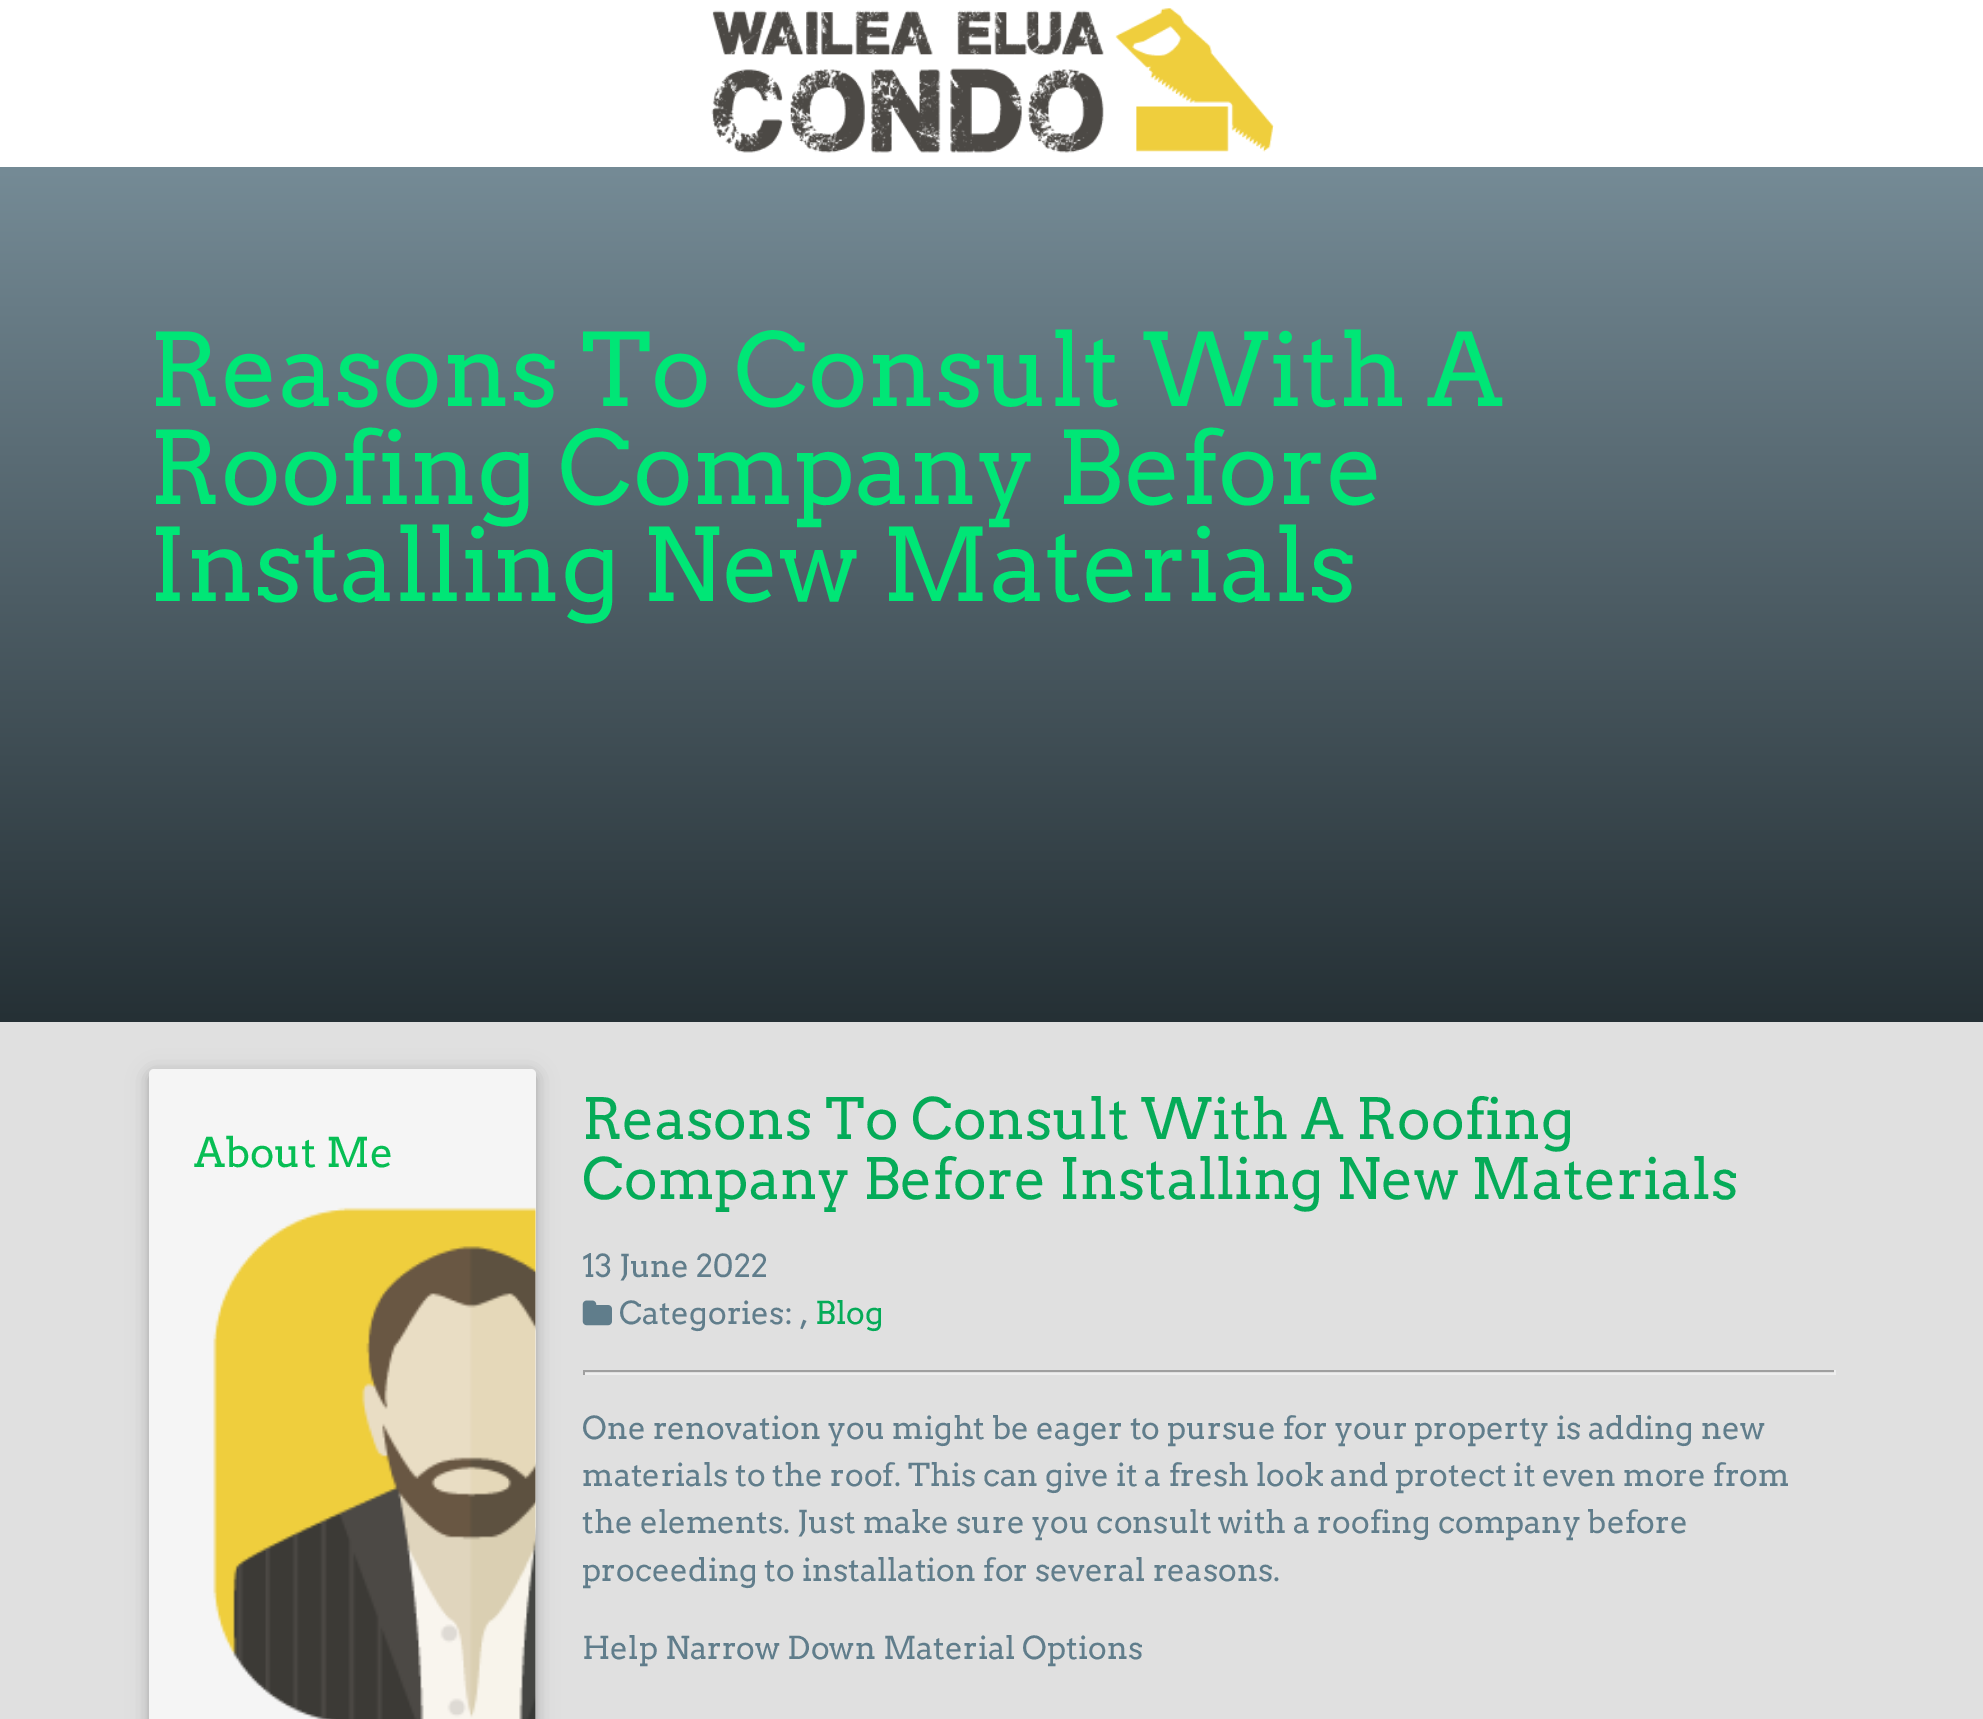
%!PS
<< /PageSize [1983 1719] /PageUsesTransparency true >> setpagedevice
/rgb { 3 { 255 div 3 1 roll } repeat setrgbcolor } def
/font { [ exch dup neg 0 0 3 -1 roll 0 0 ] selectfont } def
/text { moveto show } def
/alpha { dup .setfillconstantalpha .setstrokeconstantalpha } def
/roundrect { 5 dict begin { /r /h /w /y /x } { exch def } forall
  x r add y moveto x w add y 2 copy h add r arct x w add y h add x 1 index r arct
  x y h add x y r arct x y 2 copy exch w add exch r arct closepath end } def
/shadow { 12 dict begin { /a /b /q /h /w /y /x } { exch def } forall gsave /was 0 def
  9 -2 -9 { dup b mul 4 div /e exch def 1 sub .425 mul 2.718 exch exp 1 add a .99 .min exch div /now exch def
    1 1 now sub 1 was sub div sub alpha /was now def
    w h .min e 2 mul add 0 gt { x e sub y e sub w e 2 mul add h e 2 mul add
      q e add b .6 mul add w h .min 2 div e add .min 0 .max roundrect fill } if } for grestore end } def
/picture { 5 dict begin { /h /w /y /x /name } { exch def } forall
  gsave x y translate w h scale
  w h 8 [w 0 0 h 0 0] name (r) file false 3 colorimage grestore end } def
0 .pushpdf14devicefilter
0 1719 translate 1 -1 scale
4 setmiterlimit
255 255 255 rgb
0 0 1983 1719 rectfill
(img_01.rgb) 711 8 563 145 picture
gsave 0 167 moveto 1983 0 rlineto 0 855 rlineto -1983 0 rlineto closepath clip newpath
<< /ShadingType 2 /ColorSpace /DeviceRGB /Coords [992 166 992 1022] /Extend [true true] /Function << /FunctionType 2 /Domain [0 1] /C0 [0.459 0.545 0.588] /C1 [0.145 0.188 0.208] /N 1 >> >> shfill grestore
224 224 224 rgb
0 1022 1983 697 rectfill
0 0 0 rgb
149 1073 387 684 5 11 0.12 shadow
149 1073 387 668 5 5.5 0.16 shadow
245 245 245 rgb
149 1069 387 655 5 roundrect fill
(img_02.rgb) 213 1207 323 512 picture
(img_03.rgb) 582 1300 30 26 picture
159 159 159 rgb
583 1370 1253 2 rectfill
238 238 238 rgb
1834 1370 2 5 rectfill
583 1373 1253 2 rectfill
159 159 159 rgb
583 1370 2 5 rectfill
/Arvo-Regular 100.75 font
0 230 118 rgb
(Reasons To Consult With A) 149 406 text
(Roofing Company Before) 149 504 text
(Installing New Materials) 149 601 text
/Arvo-Regular 41 font
7 190 84 rgb
(About Me) 194 1167 text
/Arvo-Regular 56.7 font
5 171 88 rgb
(Reasons To Consult With A Roofing) 582 1139 text
(Company Before Installing New Materials) 582 1199 text
/Arvo-Regular 31.5 font
96 125 139 rgb
(13 June 2022) 582 1277 text
(Categories: ,) 619 1324 text
5 171 88 rgb
(Blog) 815 1324 text
96 125 139 rgb
(One renovation you might be eager to pursue for your property is adding new) 582 1439 text
(materials to the roof. This can give it a fresh look and protect it even more from) 582 1486 text
(the elements. Just make sure you consult with a roofing company before) 582 1533 text
(proceeding to installation for several reasons.) 582 1581 text
(Help Narrow Down Material Options) 582 1659 text
.poppdf14devicefilter showpage
